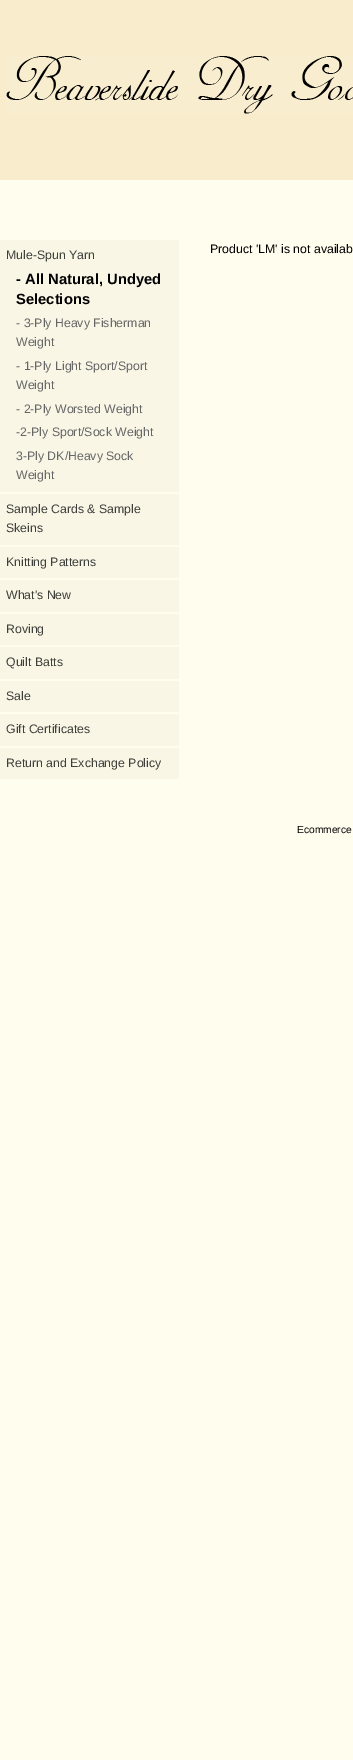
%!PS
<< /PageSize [353 1760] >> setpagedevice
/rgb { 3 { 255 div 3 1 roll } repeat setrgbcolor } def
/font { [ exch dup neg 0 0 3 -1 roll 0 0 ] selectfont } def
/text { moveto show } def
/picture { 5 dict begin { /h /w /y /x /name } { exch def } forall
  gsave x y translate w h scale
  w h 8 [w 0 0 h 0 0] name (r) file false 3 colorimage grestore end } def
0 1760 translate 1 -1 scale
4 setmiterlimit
255 253 238 rgb
0 0 353 1760 rectfill
248 236 205 rgb
0 0 353 180 rectfill
(img_01.rgb) 6 56 347 58 picture
249 246 230 rgb
0 240 179 252 rectfill
0 494 179 51 rectfill
0 547 179 31 rectfill
0 580 179 32 rectfill
0 614 179 31 rectfill
0 647 179 32 rectfill
0 681 179 31 rectfill
0 714 179 32 rectfill
0 748 179 31 rectfill
/LiberationSans-Regular 12.3 font
0 0 0 rgb
(Product 'LM' is not availab) 210 253 text
62 62 58 rgb
(Mule-Spun Yarn) 6 259 text
/LiberationSans-Bold 14.75 font
0 0 0 rgb
(- All Natural, Undyed) 16 284 text
(Selections) 16 304 text
/LiberationSans-Regular 12.3 font
102 102 102 rgb
(- 3-Ply Heavy Fisherman) 16 327 text
(Weight) 16 346 text
(- 1-Ply Light Sport/Sport) 16 370 text
(Weight) 16 389 text
(- 2-Ply Worsted Weight) 16 413 text
(-2-Ply Sport/Sock Weight) 16 436 text
(3-Ply DK/Heavy Sock) 16 460 text
(Weight) 16 479 text
62 62 58 rgb
(Sample Cards & Sample) 6 513 text
(Skeins) 6 532 text
(Knitting Patterns) 6 566 text
(What's New) 6 599 text
(Roving) 6 633 text
(Quilt Batts) 6 666 text
(Sale) 6 700 text
(Gift Certificates) 6 733 text
(Return and Exchange Policy) 6 767 text
/LiberationSans-Regular 10.25 font
0 0 0 rgb
(Ecommerce) 297 833 text
showpage
